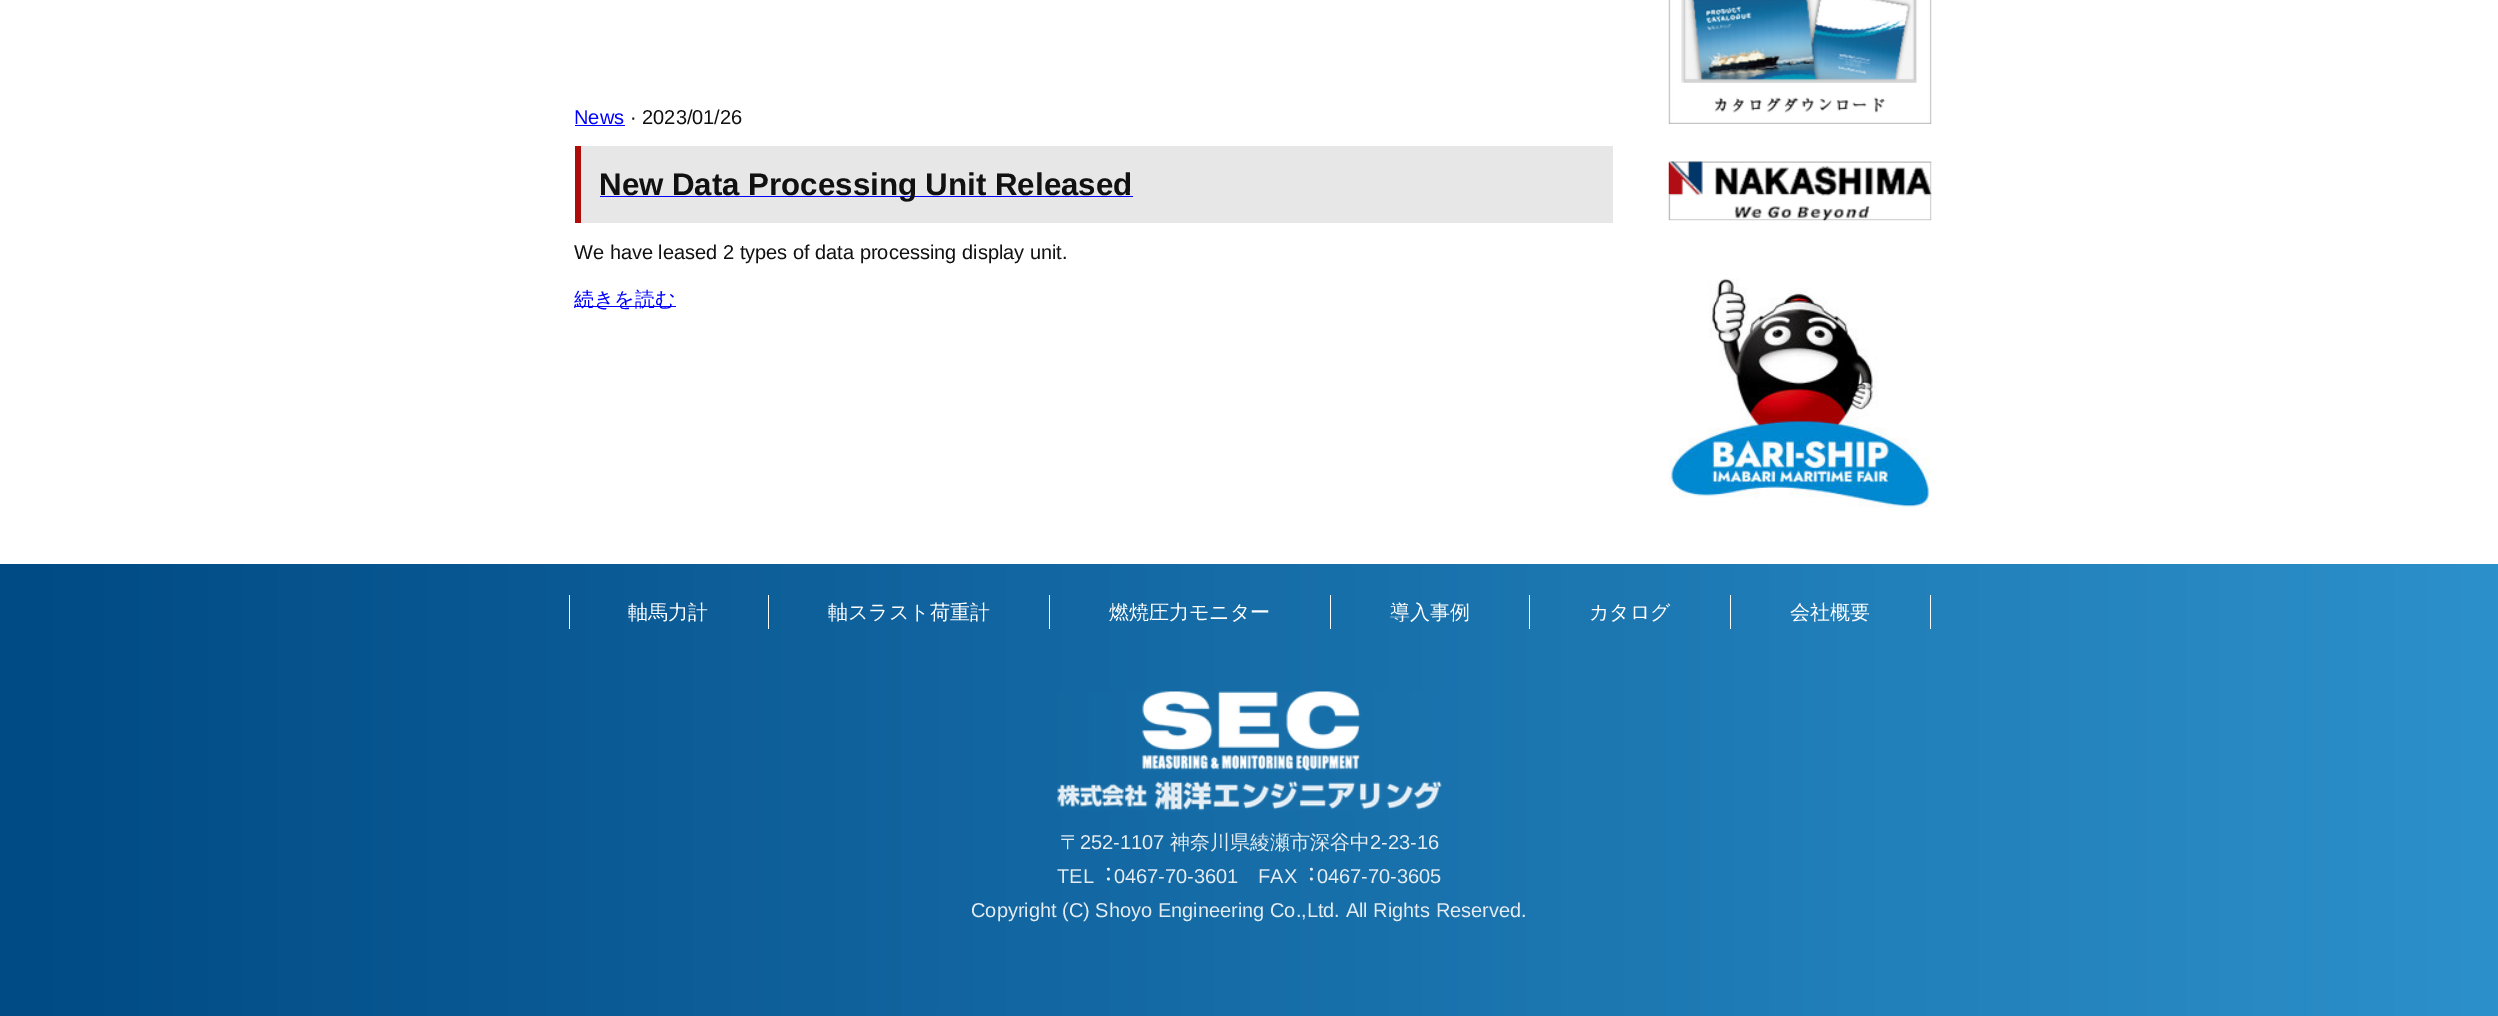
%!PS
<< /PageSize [2498 1016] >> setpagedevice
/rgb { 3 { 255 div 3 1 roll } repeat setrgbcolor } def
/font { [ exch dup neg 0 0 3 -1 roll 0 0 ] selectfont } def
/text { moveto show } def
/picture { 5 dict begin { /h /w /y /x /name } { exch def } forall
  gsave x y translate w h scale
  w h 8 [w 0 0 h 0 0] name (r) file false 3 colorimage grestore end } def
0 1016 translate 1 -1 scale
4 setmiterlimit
255 255 255 rgb
0 0 2498 1016 rectfill
0 0 255 rgb
575 125 50 1 rectfill
231 231 231 rgb
581 146 1032 77 rectfill
174 12 9 rgb
575 146 6 77 rectfill
0 0 255 rgb
600 196 533 1 rectfill
575 306 101 1 rectfill
(img_01.rgb) 1668 0 264 124 picture
(img_02.rgb) 1668 161 264 60 picture
(img_03.rgb) 1668 278 263 230 picture
gsave 0 564 moveto 2498 0 rlineto 0 445 rlineto -2498 0 rlineto closepath clip newpath
<< /ShadingType 2 /ColorSpace /DeviceRGB /Coords [0 786 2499 786] /Extend [true true] /Function << /FunctionType 2 /Domain [0 1] /C0 [0 0.29 0.522] /C1 [0.173 0.565 0.792] /N 1 >> >> shfill grestore
255 255 255 rgb
569 595 1 34 rectfill
768 595 1 34 rectfill
1049 595 1 34 rectfill
1330 595 1 34 rectfill
1529 595 1 34 rectfill
1730 595 1 34 rectfill
1930 595 1 34 rectfill
(img_04.rgb) 1057 691 385 120 picture
gsave 0 1009 moveto 2498 0 rlineto 0 7 rlineto -2498 0 rlineto closepath clip newpath
<< /ShadingType 2 /ColorSpace /DeviceRGB /Coords [0 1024 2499 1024] /Extend [true true] /Function << /FunctionType 2 /Domain [0 1] /C0 [0 0.29 0.522] /C1 [0.173 0.565 0.792] /N 1 >> >> shfill grestore
/LiberationSans-Regular 20 font
0 0 255 rgb
(News) 574 124 text
17 17 17 rgb
(· 2023/01/26) 630 124 text
/LiberationSans-Bold 31.25 font
(New Data Processing Unit Released) 599 195 text
/LiberationSans-Regular 20 font
(We have leased 2 types of data processing display unit.) 574 259 text
/WenQuanYiZenHei-Medium 20 font
0 0 255 rgb
(続きを読む) 574 306 text
255 255 255 rgb
(軸馬力計) 628 619 text
(軸スラスト荷重計) 828 619 text
(燃焼圧力モニター) 1109 619 text
(導入事例) 1390 619 text
(カタログ) 1589 619 text
(会社概要) 1790 619 text
229 237 243 rgb
(〒) 1060 849 text
/LiberationSans-Regular 20 font
(252-1107) 1080 849 text
/WenQuanYiZenHei-Medium 20 font
(神奈川県綾瀬市深谷中) 1170 849 text
/LiberationSans-Regular 20 font
(2-23-16) 1370 849 text
(TEL) 1057 883 text
/ChironHeiHK-Regular 20 font
(︓) 1094 883 text
/LiberationSans-Regular 20 font
(0467-70-3601) 1114 883 text
(FAX) 1258 883 text
/ChironHeiHK-Regular 20 font
(︓) 1297 883 text
/LiberationSans-Regular 20 font
(0467-70-3605) 1317 883 text
(Copyright \(C\) Shoyo Engineering Co.,Ltd. All Rights Reserved.) 971 917 text
showpage
